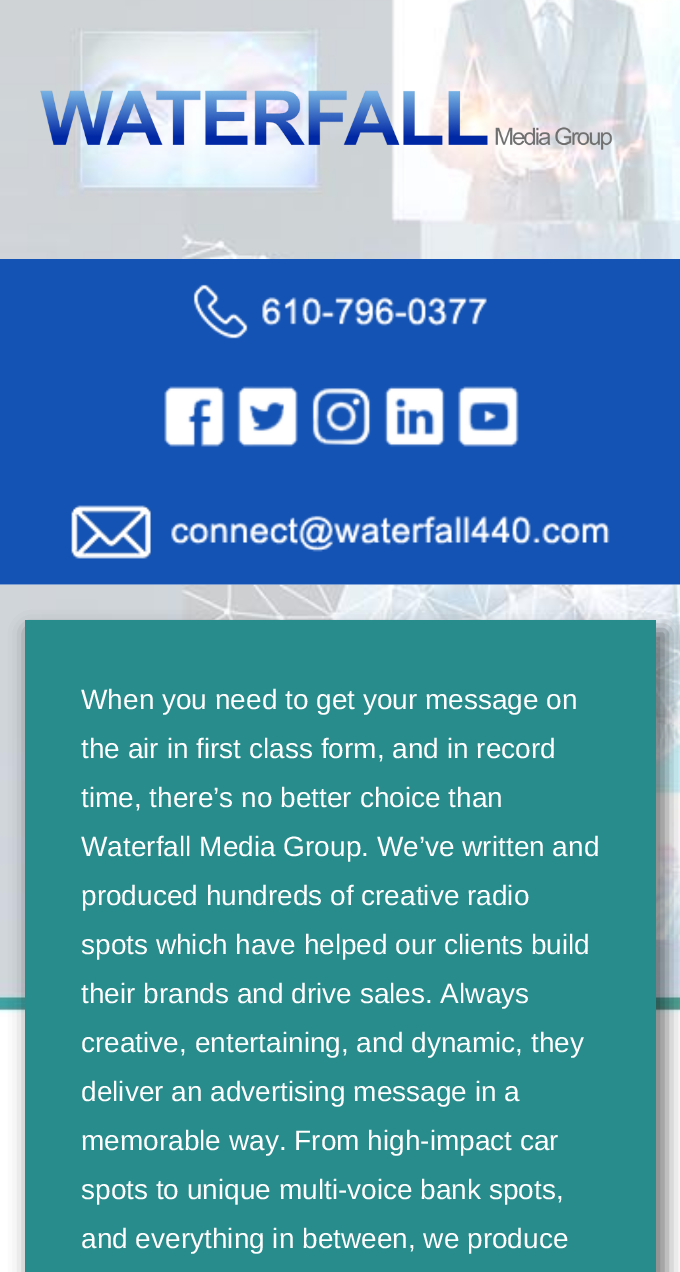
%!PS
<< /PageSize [680 1272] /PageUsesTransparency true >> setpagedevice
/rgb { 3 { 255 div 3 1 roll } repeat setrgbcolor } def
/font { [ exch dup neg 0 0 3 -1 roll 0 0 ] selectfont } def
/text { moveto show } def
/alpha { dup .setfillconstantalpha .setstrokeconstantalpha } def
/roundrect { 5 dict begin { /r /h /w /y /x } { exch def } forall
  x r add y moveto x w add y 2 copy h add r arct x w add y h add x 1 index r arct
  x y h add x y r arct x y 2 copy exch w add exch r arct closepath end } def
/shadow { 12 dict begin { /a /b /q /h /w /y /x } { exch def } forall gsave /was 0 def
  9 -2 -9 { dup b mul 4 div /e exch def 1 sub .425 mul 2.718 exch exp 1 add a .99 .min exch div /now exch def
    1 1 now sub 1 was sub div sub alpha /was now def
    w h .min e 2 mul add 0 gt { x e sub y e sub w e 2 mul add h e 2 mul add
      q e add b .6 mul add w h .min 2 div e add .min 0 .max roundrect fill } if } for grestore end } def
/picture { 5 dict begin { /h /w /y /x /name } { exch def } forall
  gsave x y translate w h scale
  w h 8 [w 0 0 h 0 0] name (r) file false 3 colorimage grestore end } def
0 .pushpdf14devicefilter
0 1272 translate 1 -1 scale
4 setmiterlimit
255 255 255 rgb
0 0 680 1272 rectfill
(img_01.rgb) 0 0 680 259 picture
(img_02.rgb) 40 90 573 60 picture
20 83 180 rgb
0 259 680 326 rectfill
(img_03.rgb) 193 284 294 55 picture
(img_04.rgb) 164 386 355 61 picture
(img_05.rgb) 71 505 539 54 picture
(img_06.rgb) 0 584 680 433 picture
0 0 0 rgb
28 630 639 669 0 9 0.5 shadow
40 140 140 rgb
25 620 631 652 rectfill
/LiberationSans-Regular 28 font
255 255 255 rgb
(When you need to get your message on) 81 709 text
(the air in first class form, and in record) 81 758 text
(time, there’s no better choice than) 81 807 text
(Waterfall Media Group. We’ve written and) 81 856 text
(produced hundreds of creative radio) 81 905 text
(spots which have helped our clients build) 81 954 text
(their brands and drive sales. Always) 81 1003 text
(creative, entertaining, and dynamic, they) 81 1052 text
(deliver an advertising message in a) 81 1101 text
(memorable way. From high-impact car) 81 1150 text
(spots to unique multi-voice bank spots,) 81 1199 text
(and everything in between, we produce) 81 1248 text
.poppdf14devicefilter showpage
